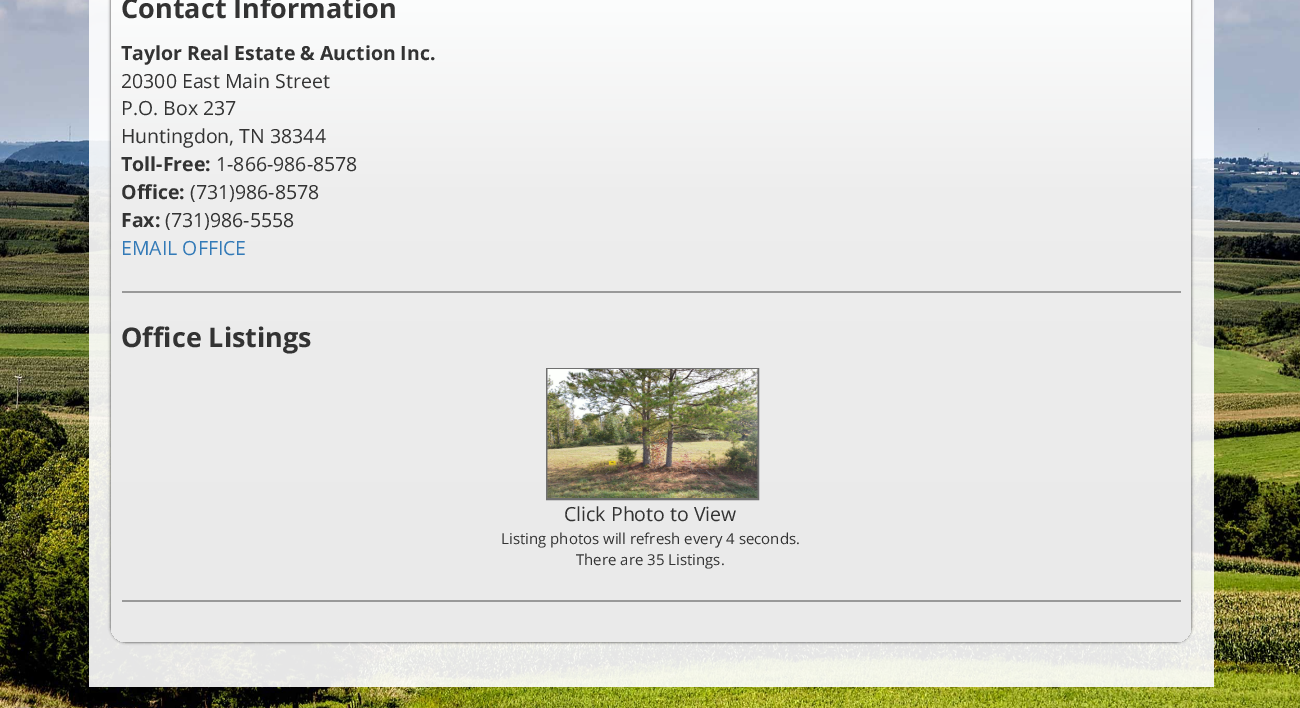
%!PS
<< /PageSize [1300 708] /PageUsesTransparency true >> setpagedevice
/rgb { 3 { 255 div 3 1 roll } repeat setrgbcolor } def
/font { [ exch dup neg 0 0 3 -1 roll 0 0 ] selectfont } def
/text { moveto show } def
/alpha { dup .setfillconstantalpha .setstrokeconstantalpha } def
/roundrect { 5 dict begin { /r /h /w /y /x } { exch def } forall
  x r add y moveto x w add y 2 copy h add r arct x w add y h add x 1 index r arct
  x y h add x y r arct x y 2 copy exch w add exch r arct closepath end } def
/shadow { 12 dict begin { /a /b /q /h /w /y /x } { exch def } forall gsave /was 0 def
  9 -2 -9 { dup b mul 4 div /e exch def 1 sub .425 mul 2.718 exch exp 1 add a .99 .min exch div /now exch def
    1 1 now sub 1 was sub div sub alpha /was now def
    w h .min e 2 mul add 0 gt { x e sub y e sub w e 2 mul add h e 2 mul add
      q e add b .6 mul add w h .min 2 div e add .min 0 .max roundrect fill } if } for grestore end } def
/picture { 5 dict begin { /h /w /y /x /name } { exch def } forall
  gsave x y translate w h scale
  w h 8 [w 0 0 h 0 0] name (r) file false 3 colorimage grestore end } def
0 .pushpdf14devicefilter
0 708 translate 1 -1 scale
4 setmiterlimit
255 255 255 rgb
0 0 1300 708 rectfill
(img_01.rgb) 0 0 1300 708 picture
0.9 alpha
89 0 1125 687 rectfill
1 alpha
0 0 0 rgb
111 -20 1080 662 15 1.5 0.75 shadow
gsave 111 -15 1080 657 15 roundrect clip newpath
<< /ShadingType 2 /ColorSpace /DeviceRGB /Coords [651 -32 651 642] /Extend [true true] /Function << /FunctionType 3 /Domain [0 1] /Functions [<< /FunctionType 2 /Domain [0 1] /C0 [0.996 1 1] /C1 [0.929 0.929 0.929] /N 1 >> << /FunctionType 2 /Domain [0 1] /C0 [0.929 0.929 0.929] /C1 [0.918 0.918 0.918] /N 1 >>] /Bounds [0.35] /Encode [0 1 0 1] >> >> shfill grestore
153 153 153 rgb
122 291 1059 2 rectfill
111 111 111 rgb
2 setlinewidth
547 369 211 130 rectstroke
(img_02.rgb) 547 369 211 129 picture
153 153 153 rgb
122 600 1059 2 rectfill
/OpenSans-Bold 27 font
51 51 51 rgb
(Contact Information) 121 18 text
/OpenSans-Bold 19.5 font
(Taylor Real Estate & Auction Inc.) 121 60 text
/OpenSans-Regular 19.5 font
(20300 East Main Street) 121 88 text
(P.O. Box 237) 121 115 text
(Huntingdon, TN 38344) 121 143 text
/OpenSans-Bold 19.5 font
(Toll-Free:) 121 171 text
/OpenSans-Regular 19.5 font
(1-866-986-8578) 216 171 text
/OpenSans-Bold 19.5 font
(Office:) 121 199 text
/OpenSans-Regular 19.5 font
(\(731\)986-8578) 190 199 text
/OpenSans-Bold 19.5 font
(Fax:) 121 227 text
/OpenSans-Regular 19.5 font
(\(731\)986-5558) 165 227 text
51 122 183 rgb
(EMAIL OFFICE) 121 255 text
/OpenSans-Bold 27 font
51 51 51 rgb
(Office Listings) 121 347 text
/OpenSans-Regular 19.5 font
(Click Photo to View) 564 521 text
/OpenSans-Regular 15 font
(Listing photos will refresh every 4 seconds.) 501 544 text
(There are 35 Listings.) 576 565 text
.poppdf14devicefilter showpage
